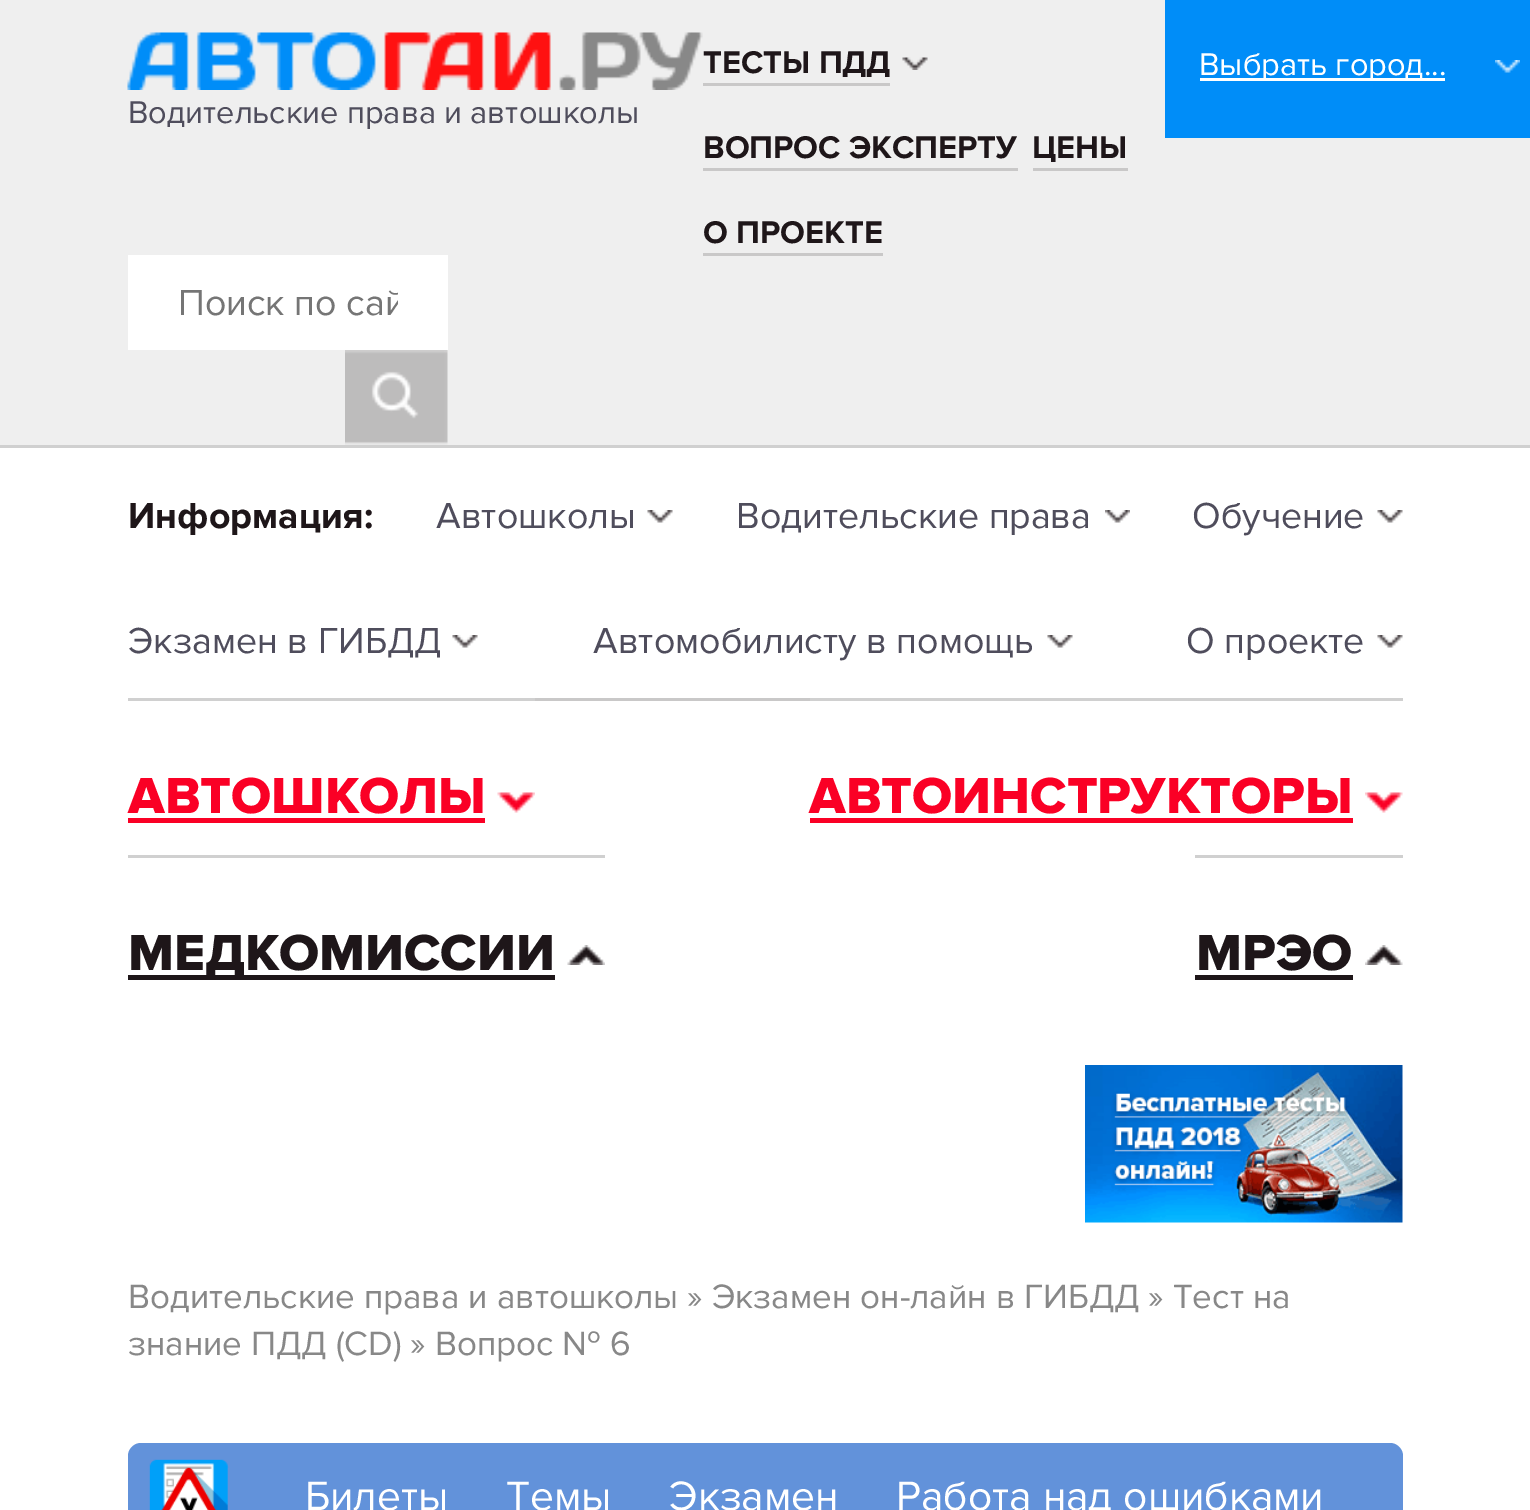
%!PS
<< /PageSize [1530 1510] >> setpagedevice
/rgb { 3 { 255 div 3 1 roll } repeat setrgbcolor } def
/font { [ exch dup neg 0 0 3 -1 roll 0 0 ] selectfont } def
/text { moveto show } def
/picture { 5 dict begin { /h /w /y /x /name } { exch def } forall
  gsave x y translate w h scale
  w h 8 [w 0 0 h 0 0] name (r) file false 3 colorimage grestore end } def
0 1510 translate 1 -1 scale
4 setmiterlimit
255 255 255 rgb
0 0 1530 1510 rectfill
239 239 239 rgb
0 0 1530 445 rectfill
208 208 208 rgb
0 445 1530 3 rectfill
(img_01.rgb) 902 57 26 13 picture
201 200 200 rgb
703 83 187 3 rectfill
703 168 315 3 rectfill
1033 168 95 3 rectfill
703 253 180 3 rectfill
0 141 248 rgb
1165 0 365 138 rectfill
(img_02.rgb) 1495 60 25 13 picture
255 255 255 rgb
1200 78 245 3 rectfill
(img_03.rgb) 127 32 576 58 picture
128 255 320 95 rectfill
(img_04.rgb) 345 350 103 95 picture
201 200 200 rgb
535 698 275 3 rectfill
(img_05.rgb) 647 510 26 13 picture
(img_06.rgb) 1105 510 25 13 picture
(img_05.rgb) 1377 510 26 13 picture
(img_05.rgb) 452 635 26 13 picture
(img_07.rgb) 1047 635 26 13 picture
(img_05.rgb) 1377 635 26 13 picture
208 208 208 rgb
128 698 407 3 rectfill
(img_08.rgb) 497 792 38 21 picture
250 0 37 rgb
128 818 357 5 rectfill
208 208 208 rgb
810 698 593 3 rectfill
(img_09.rgb) 1365 792 38 21 picture
250 0 37 rgb
810 818 543 5 rectfill
208 208 208 rgb
128 855 477 3 rectfill
(img_10.rgb) 567 945 38 20 picture
30 22 25 rgb
128 975 427 5 rectfill
208 208 208 rgb
1195 855 208 3 rectfill
(img_11.rgb) 1365 945 38 20 picture
30 22 25 rgb
1195 975 158 5 rectfill
(img_12.rgb) 1085 1065 318 158 picture
98 146 218 rgb
141 1443 moveto 1249 0 rlineto 7 0 13 6 13 13 rcurveto 0 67 rlineto -1275 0 rlineto 0 -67 rlineto 0 -7 6 -13 13 -13 rcurveto closepath fill
(img_13.rgb) 149 1459 80 51 picture
/ProximaNova-Bold 32.5 font
30 22 25 rgb
(ТЕСТЫ ПДД) 703 73 text
(ВОПРОС ЭКСПЕРТУ) 703 158 text
(ЦЕНЫ) 1032 158 text
(О ПРОЕКТЕ) 703 243 text
/ProximaNova-Regular 32.5 font
255 255 255 rgb
(Выбрать город...) 1199 75 text
79 77 92 rgb
(Водительские права и автошколы) 128 123 text
gsave
178 280 220 45 rectclip
/ProximaNova-Regular 37.5 font
117 117 117 rgb
(Поиск по сай) 178 315 text
grestore
/ProximaNova-Bold 37.5 font
30 22 25 rgb
(Информация:) 128 528 text
/ProximaNova-Regular 37.5 font
79 77 92 rgb
(Автошколы) 436 528 text
(Водительские права) 736 528 text
(Обучение) 1192 528 text
(Экзамен в ГИБДД) 128 653 text
(Автомобилисту в помощь) 593 653 text
(О проекте) 1186 653 text
/ProximaNova-ExtraBold 52.5 font
250 0 37 rgb
(АВТОШКОЛЫ) 128 813 text
(АВТОИНСТРУКТОРЫ) 809 813 text
30 22 25 rgb
(МЕДКОМИССИИ) 128 970 text
(МРЭО) 1196 970 text
/ProximaNova-Regular 35 font
136 136 136 rgb
(Водительские права и автошколы » Экзамен он-лайн в ГИБДД » Тест на) 128 1308 text
(знание ПДД \(CD\) » Вопрос № 6) 128 1355 text
/ProximaNova-Regular 42.5 font
255 255 255 rgb
(Билеты) 305 1510 text
(Темы) 506 1510 text
(Экзамен) 669 1510 text
(Работа над ошибками) 896 1510 text
showpage
